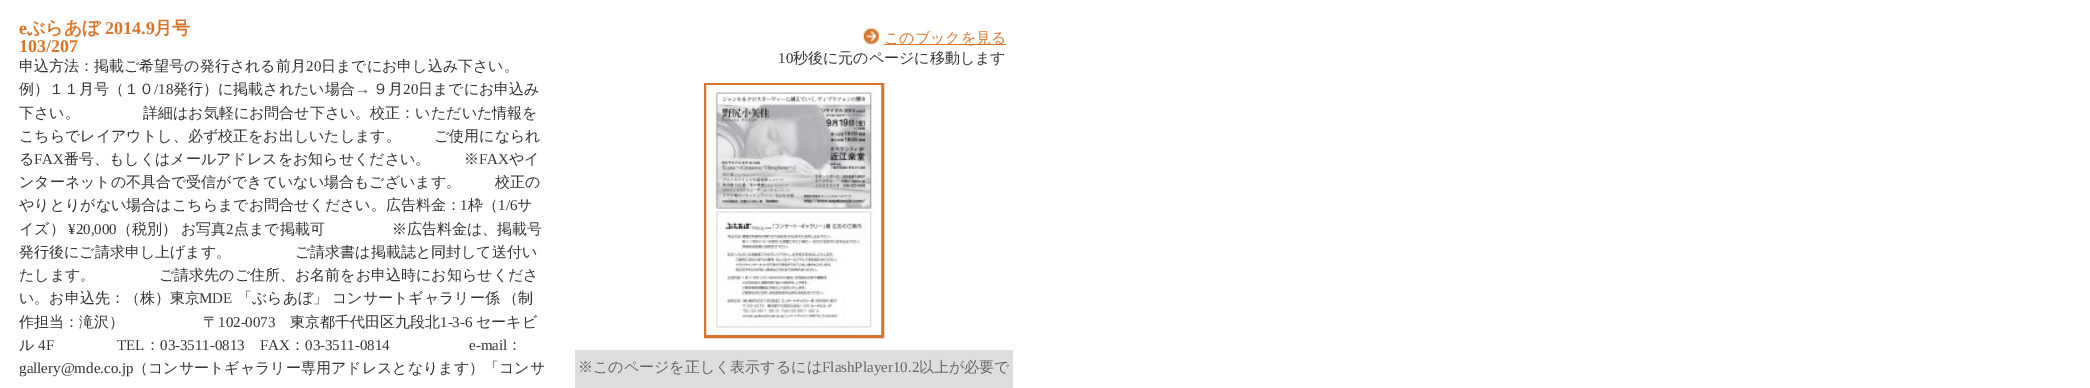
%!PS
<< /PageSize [2090 388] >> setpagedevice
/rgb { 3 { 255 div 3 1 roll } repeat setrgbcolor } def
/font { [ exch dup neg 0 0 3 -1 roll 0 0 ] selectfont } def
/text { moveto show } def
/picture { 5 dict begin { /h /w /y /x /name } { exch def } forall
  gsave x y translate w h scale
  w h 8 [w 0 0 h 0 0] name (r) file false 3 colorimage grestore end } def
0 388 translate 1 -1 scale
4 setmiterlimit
255 255 255 rgb
0 0 2090 388 rectfill
(img_01.rgb) 863 28 16 16 picture
217 117 43 rgb
884 44 122 1 rectfill
3 setlinewidth
705.5 84.5 177 252 rectstroke
(img_02.rgb) 706 85 176 250 picture
221 221 221 rgb
575 350 438 38 rectfill
/LiberationSerif-Bold 18 font
217 117 43 rgb
(e) 19 34 text
/WenQuanYiZenHei-Bold 18 font
(ぶらあぼ) 27 34 text
/LiberationSerif-Bold 18 font
(2014.9) 105 34 text
/WenQuanYiZenHei-Bold 18 font
(月号) 154 34 text
/LiberationSerif-Bold 18 font
(103/207) 19 52 text
/WenQuanYiZenHei-Medium 15 font
51 51 51 rgb
(申込方法：掲載ご希望号の発行される前月) 19 71 text
/LiberationSerif-Regular 15 font
(20) 306 71 text
/WenQuanYiZenHei-Medium 15 font
(日までにお申し込み下さい。) 321 71 text
(例）１１月号（１０) 19 94 text
/LiberationSerif-Regular 15 font
(/18) 154 94 text
/WenQuanYiZenHei-Medium 15 font
(発行）に掲載されたい場合) 173 94 text
/LiberationSerif-Regular 15 font
(→) 355 94 text
/WenQuanYiZenHei-Medium 15 font
(９月) 373 94 text
/LiberationSerif-Regular 15 font
(20) 403 94 text
/WenQuanYiZenHei-Medium 15 font
(日までにお申込み) 418 94 text
(下さい。) 19 118 text
(詳細はお気軽にお問合せ下さい。校正：いただいた情報を) 143 118 text
(こちらでレイアウトし、必ず校正をお出しいたします。) 19 141 text
(ご使用になられ) 434 141 text
(る) 19 164 text
/LiberationSerif-Regular 15 font
(FAX) 34 164 text
/WenQuanYiZenHei-Medium 15 font
(番号、もしくはメールアドレスをお知らせください。) 64 164 text
(※) 464 164 text
/LiberationSerif-Regular 15 font
(FAX) 479 164 text
/WenQuanYiZenHei-Medium 15 font
(やイ) 509 164 text
(ンターネットの不具合で受信ができていない場合もございます。) 19 187 text
(校正の) 495 187 text
(やりとりがない場合はこちらまでお問合せください。広告料金：) 19 210 text
/LiberationSerif-Regular 15 font
(1) 460 210 text
/WenQuanYiZenHei-Medium 15 font
(枠（) 468 210 text
/LiberationSerif-Regular 15 font
(1/6) 498 210 text
/WenQuanYiZenHei-Medium 15 font
(サ) 517 210 text
(イズ）) 19 234 text
/LiberationSerif-Regular 15 font
(¥20,000) 68 234 text
/WenQuanYiZenHei-Medium 15 font
(（税別）) 117 234 text
(お写真) 181 234 text
/LiberationSerif-Regular 15 font
(2) 226 234 text
/WenQuanYiZenHei-Medium 15 font
(点まで掲載可) 234 234 text
(※広告料金は、掲載号) 392 234 text
(発行後にご請求申し上げます。) 19 257 text
(ご請求書は掲載誌と同封して送付い) 295 257 text
(たします。) 19 280 text
(ご請求先のご住所、お名前をお申込時にお知らせくださ) 159 280 text
(い。お申込先：（株）東京) 19 303 text
/LiberationSerif-Regular 15 font
(MDE) 199 303 text
/WenQuanYiZenHei-Medium 15 font
(「ぶらあぼ」) 237 303 text
(コンサートギャラリー係) 332 303 text
(（制) 503 303 text
(作担当：滝沢）) 19 327 text
(〒) 203 327 text
/LiberationSerif-Regular 15 font
(102‐0073) 218 327 text
/WenQuanYiZenHei-Medium 15 font
(東京都千代田区九段北) 290 327 text
/LiberationSerif-Regular 15 font
(1-3-6) 440 327 text
/WenQuanYiZenHei-Medium 15 font
(セーキビ) 476 327 text
(ル) 19 350 text
/LiberationSerif-Regular 15 font
(4F) 38 350 text
(TEL) 117 350 text
/WenQuanYiZenHei-Medium 15 font
(：) 145 350 text
/LiberationSerif-Regular 15 font
(03‐3511‐0813) 160 350 text
(FAX) 260 350 text
/WenQuanYiZenHei-Medium 15 font
(：) 290 350 text
/LiberationSerif-Regular 15 font
(03‐3511‐0814) 305 350 text
(e-mail) 469 350 text
/WenQuanYiZenHei-Medium 15 font
(：) 507 350 text
/LiberationSerif-Regular 15 font
(gallery@mde.co.jp) 19 373 text
/WenQuanYiZenHei-Medium 15 font
(（コンサートギャラリー専用アドレスとなります）「コンサ) 133 373 text
217 117 43 rgb
(このブックを見る) 884 43 text
/LiberationSerif-Regular 15 font
51 51 51 rgb
(10) 778 63 text
/WenQuanYiZenHei-Medium 15 font
(秒後に元のページに移動します) 793 63 text
102 102 102 rgb
(※このページを正しく表示するには) 578 372 text
/LiberationSerif-Regular 15 font
(FlashPlayer10.2) 822 372 text
/WenQuanYiZenHei-Medium 15 font
(以上が必要で) 919 372 text
showpage
